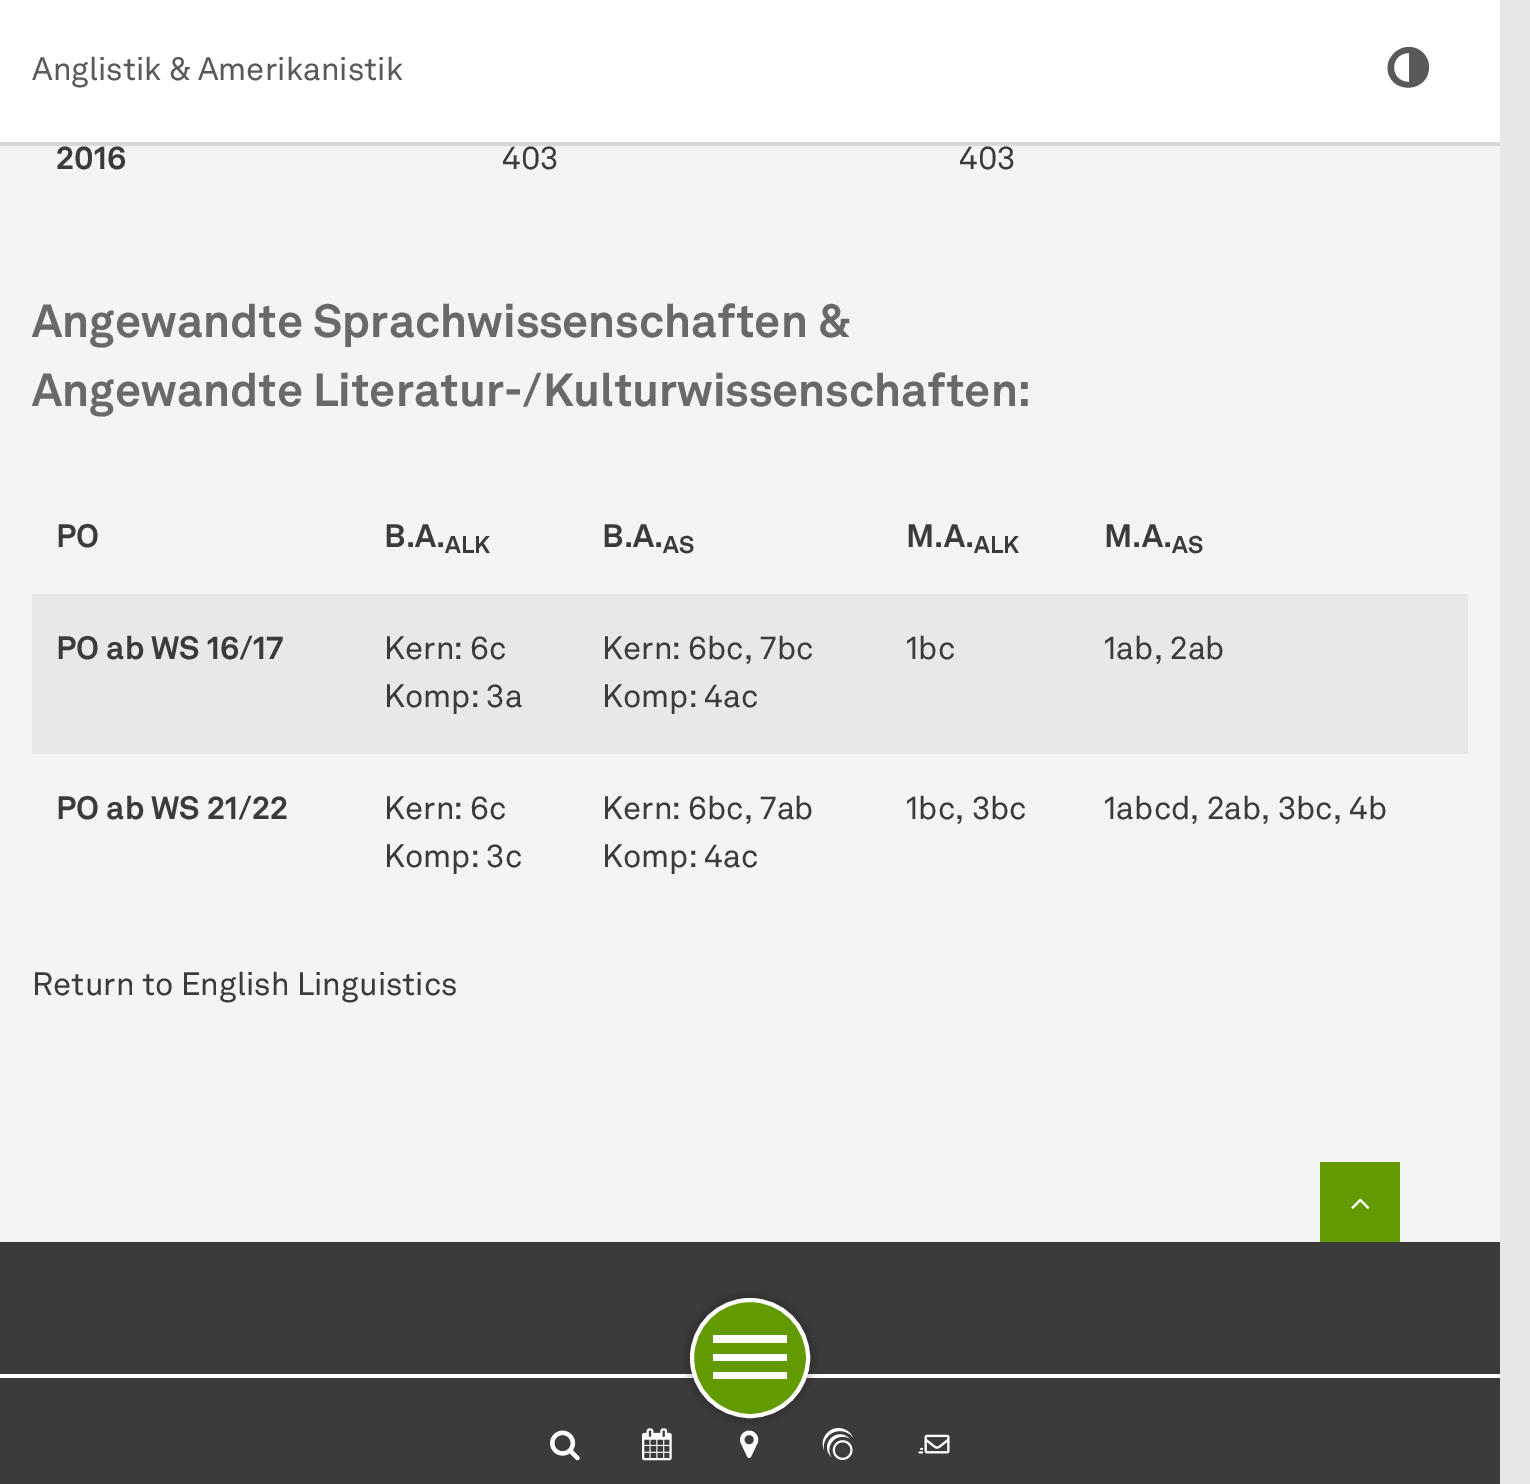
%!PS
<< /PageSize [1530 1484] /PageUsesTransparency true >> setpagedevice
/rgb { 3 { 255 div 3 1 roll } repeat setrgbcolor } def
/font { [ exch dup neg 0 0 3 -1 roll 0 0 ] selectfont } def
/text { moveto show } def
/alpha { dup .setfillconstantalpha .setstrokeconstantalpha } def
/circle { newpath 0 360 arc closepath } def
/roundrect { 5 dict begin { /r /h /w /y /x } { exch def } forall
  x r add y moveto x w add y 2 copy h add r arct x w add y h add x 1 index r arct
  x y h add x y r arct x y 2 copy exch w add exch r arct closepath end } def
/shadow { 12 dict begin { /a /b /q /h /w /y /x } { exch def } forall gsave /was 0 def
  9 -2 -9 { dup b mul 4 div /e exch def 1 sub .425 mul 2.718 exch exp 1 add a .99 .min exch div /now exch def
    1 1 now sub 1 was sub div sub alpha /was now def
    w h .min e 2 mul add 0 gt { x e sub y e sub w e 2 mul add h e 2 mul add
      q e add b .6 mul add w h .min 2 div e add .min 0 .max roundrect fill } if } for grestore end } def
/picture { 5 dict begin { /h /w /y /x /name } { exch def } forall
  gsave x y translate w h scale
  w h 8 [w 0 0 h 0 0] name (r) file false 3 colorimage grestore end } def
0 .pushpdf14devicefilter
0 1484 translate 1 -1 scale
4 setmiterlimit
230 230 230 rgb
0 0 1530 1484 rectfill
255 255 255 rgb
0 0 1500 142 rectfill
216 216 216 rgb
0 142 1500 4 rectfill
89 89 89 rgb
1409 82 moveto 0 -29 rlineto -20 0 -20 29 0 29 rcurveto closepath 1429 67 moveto 0 25 -36 28 -41 5 rcurveto -1 -6 0 -11 3 -15 rcurveto 4 -6 10 -10 18 -10 rcurveto 11 0 20 9 20 20 rcurveto closepath fill
244 244 244 rgb
0 146 1500 1096 rectfill
232 232 232 rgb
32 594 1436 160 rectfill
99 154 0 rgb
1320 1162 80 80 rectfill
(img_01.rgb) 1351 1198 19 11 picture
59 59 59 rgb
0 1242 1500 132 rectfill
0 1378 1500 106 rectfill
255 255 255 rgb
0 1374 1500 4 rectfill
(img_04.rgb) 740 1430 19 28 picture
(img_05.rgb) 822 1428 32 32 picture
0 0 0 rgb
686 1294 128 128 64 4 0.2 shadow
99 154 0 rgb
750 1358 58 circle gsave fill grestore
255 255 255 rgb
4 setlinewidth
stroke
713 1335 moveto 74 0 rlineto 0 8 rlineto -74 0 rlineto closepath 713 1354 moveto 74 0 rlineto 0 7 rlineto -74 0 rlineto closepath 713 1372 moveto 74 0 rlineto 0 7 rlineto -74 0 rlineto closepath fill
(img_02.rgb) 550 1430 30 31 picture
(img_03.rgb) 642 1428 30 33 picture
(img_06.rgb) 918 1434 32 20 picture
/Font-Regular 32 font
89 89 89 rgb
(Anglistik & Amerikanistik) 32 80 text
/Font-Bold 32 font
59 59 59 rgb
(2016) 56 169 text
/Font-Regular 32 font
(403) 502 169 text
(403) 959 169 text
/Font-Bold 46 font
105 105 105 rgb
(Angewandte Sprachwissenschaften &) 32 337 text
(Angewandte Literatur-/Kulturwissenschaften:) 32 406 text
/Font-Bold 32 font
59 59 59 rgb
(PO) 56 547 text
(B.A.) 384 547 text
/Font-Bold 24 font
(ALK) 445 553 text
/Font-Bold 32 font
(B.A.) 602 547 text
/Font-Bold 24 font
(AS) 663 553 text
/Font-Bold 32 font
(M.A.) 906 547 text
/Font-Bold 24 font
(ALK) 974 553 text
/Font-Bold 32 font
(M.A.) 1104 547 text
/Font-Bold 24 font
(AS) 1172 553 text
/Font-Bold 32 font
(PO ab WS 16/17) 56 659 text
/Font-Regular 32 font
(Kern: 6c) 384 659 text
(Komp: 3a) 384 707 text
(Kern: 6bc, 7bc) 602 659 text
(Komp: 4ac) 602 707 text
(1bc) 906 659 text
(1ab, 2ab) 1104 659 text
/Font-Bold 32 font
(PO ab WS 21/22) 56 819 text
/Font-Regular 32 font
(Kern: 6c) 384 819 text
(Komp: 3c) 384 867 text
(Kern: 6bc, 7ab) 602 819 text
(Komp: 4ac) 602 867 text
(1bc, 3bc) 906 819 text
(1abcd, 2ab, 3bc, 4b) 1104 819 text
(Return to English Linguistics) 32 995 text
.poppdf14devicefilter showpage
